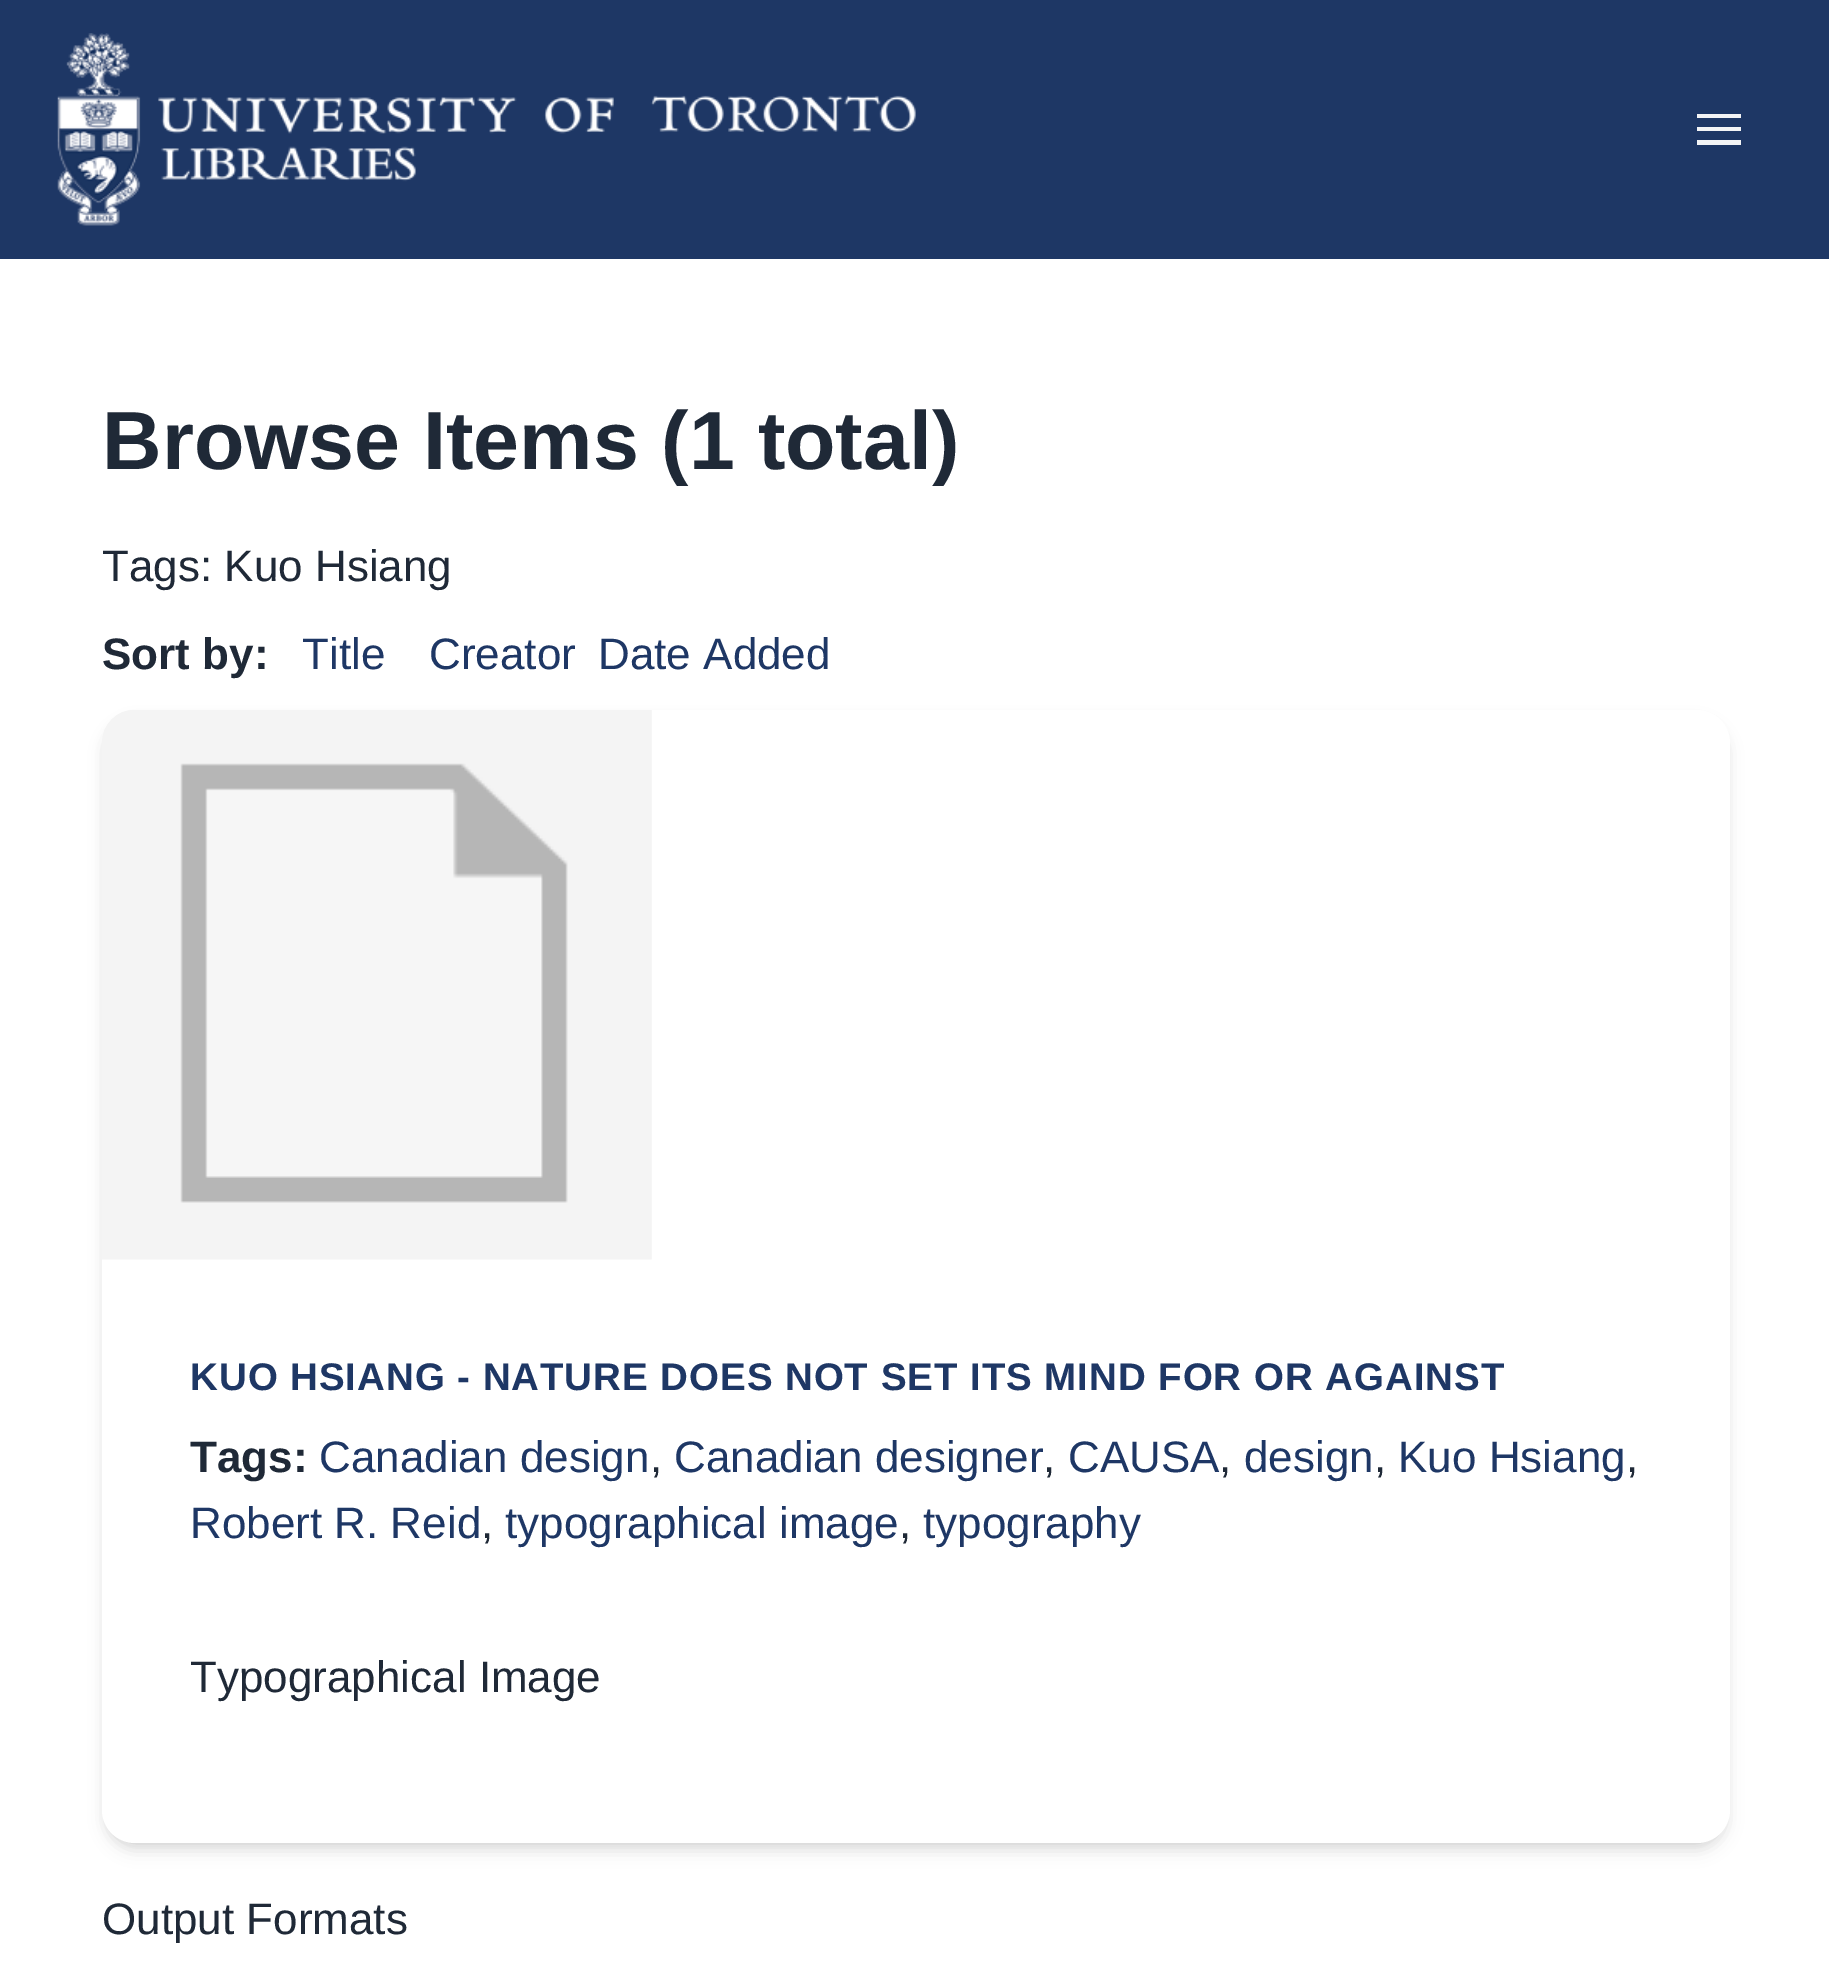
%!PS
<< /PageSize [1829 1974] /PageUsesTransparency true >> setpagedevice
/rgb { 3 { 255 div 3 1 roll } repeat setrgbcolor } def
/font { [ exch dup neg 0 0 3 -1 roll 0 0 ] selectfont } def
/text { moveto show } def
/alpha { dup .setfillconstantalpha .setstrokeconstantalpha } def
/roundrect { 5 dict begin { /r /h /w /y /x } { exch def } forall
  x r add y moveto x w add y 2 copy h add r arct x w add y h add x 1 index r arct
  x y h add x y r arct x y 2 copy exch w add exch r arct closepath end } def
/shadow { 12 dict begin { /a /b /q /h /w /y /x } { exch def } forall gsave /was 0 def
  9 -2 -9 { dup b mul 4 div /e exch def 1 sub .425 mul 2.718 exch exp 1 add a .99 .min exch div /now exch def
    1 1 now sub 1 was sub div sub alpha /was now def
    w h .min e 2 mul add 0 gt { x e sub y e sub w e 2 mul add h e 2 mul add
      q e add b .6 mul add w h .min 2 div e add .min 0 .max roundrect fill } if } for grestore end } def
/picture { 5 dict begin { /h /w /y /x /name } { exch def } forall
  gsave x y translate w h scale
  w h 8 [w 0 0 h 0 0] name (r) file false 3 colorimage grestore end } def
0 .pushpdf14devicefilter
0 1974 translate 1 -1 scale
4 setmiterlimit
255 255 255 rgb
0 0 1829 1974 rectfill
30 55 101 rgb
0 0 1829 259 rectfill
(img_01.rgb) 57 33 859 193 picture
243 244 246 rgb
1697 114 moveto 44 0 rlineto 0 4 rlineto -44 0 rlineto closepath 1697 127 moveto 44 0 rlineto 0 4 rlineto -44 0 rlineto closepath 1697 140 moveto 44 0 rlineto 0 5 rlineto -44 0 rlineto closepath fill
0 0 0 rgb
107 721 1617 1122 28 5.5 0.1 shadow
105 723 1622 1128 30 8 0.1 shadow
255 255 255 rgb
102 710 1628 1133 33 roundrect fill
(img_02.rgb) 102 710 550 550 picture
/LiberationSans-Bold 82.5 font
31 41 55 rgb
(Browse Items \(1 total\)) 102 469 text
/LiberationSans-Regular 44 font
(Tags: Kuo Hsiang) 102 581 text
/LiberationSans-Bold 44 font
(Sort by:) 102 669 text
/LiberationSans-Regular 44 font
30 55 101 rgb
(Title) 302 669 text
(Creator) 429 669 text
(Date Added) 598 669 text
/LiberationSans-Bold 38.5 font
190 1390 moveto 0.95 0 (KUO HSIANG - NATURE DOES NOT SET ITS MIND FOR OR AGAINST) ashow
/LiberationSans-Bold 44 font
31 41 55 rgb
(Tags:) 190 1472 text
/LiberationSans-Regular 44 font
30 55 101 rgb
(Canadian design) 319 1472 text
31 41 55 rgb
(,) 650 1472 text
30 55 101 rgb
(Canadian designer) 674 1472 text
31 41 55 rgb
(,) 1043 1472 text
30 55 101 rgb
(CAUSA) 1068 1472 text
31 41 55 rgb
(,) 1219 1472 text
30 55 101 rgb
(design) 1244 1472 text
31 41 55 rgb
(,) 1374 1472 text
30 55 101 rgb
(Kuo Hsiang) 1398 1472 text
31 41 55 rgb
(,) 1626 1472 text
30 55 101 rgb
(Robert R. Reid) 190 1538 text
31 41 55 rgb
(,) 481 1538 text
30 55 101 rgb
(typographical image) 505 1538 text
31 41 55 rgb
(,) 899 1538 text
30 55 101 rgb
(typography) 923 1538 text
31 41 55 rgb
(Typographical Image) 190 1692 text
(Output Formats) 102 1934 text
.poppdf14devicefilter showpage
